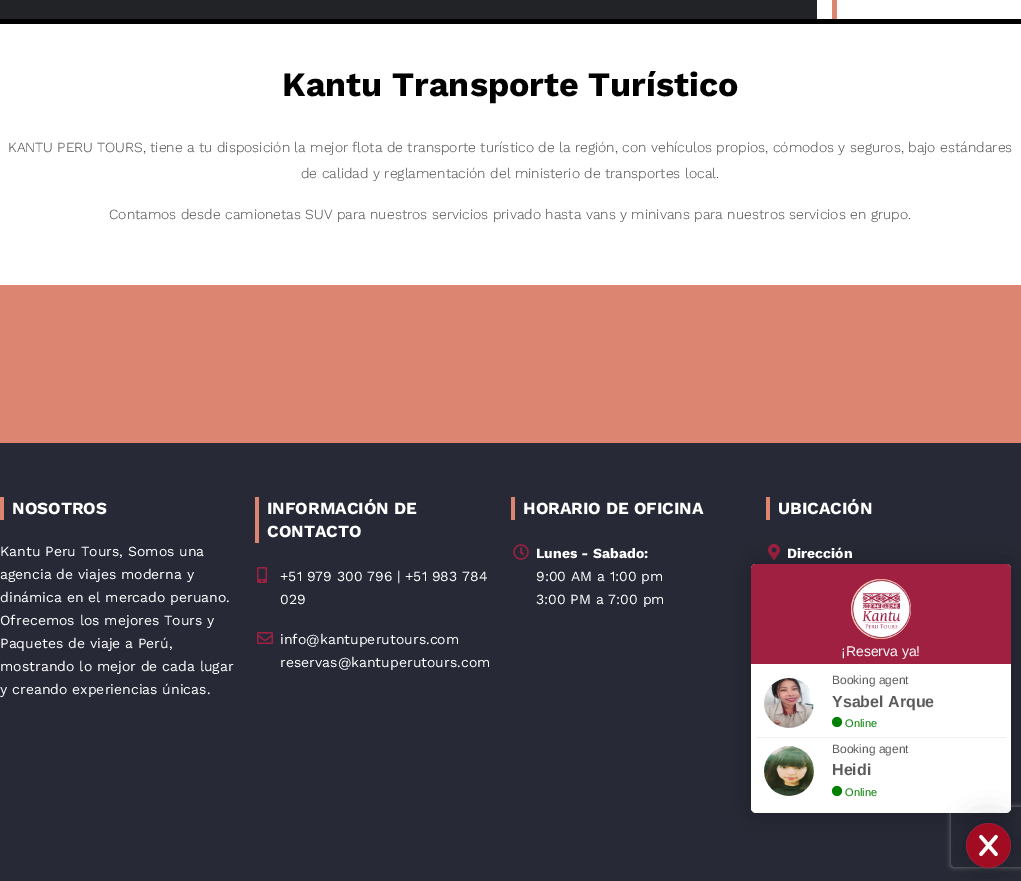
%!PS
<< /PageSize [1021 881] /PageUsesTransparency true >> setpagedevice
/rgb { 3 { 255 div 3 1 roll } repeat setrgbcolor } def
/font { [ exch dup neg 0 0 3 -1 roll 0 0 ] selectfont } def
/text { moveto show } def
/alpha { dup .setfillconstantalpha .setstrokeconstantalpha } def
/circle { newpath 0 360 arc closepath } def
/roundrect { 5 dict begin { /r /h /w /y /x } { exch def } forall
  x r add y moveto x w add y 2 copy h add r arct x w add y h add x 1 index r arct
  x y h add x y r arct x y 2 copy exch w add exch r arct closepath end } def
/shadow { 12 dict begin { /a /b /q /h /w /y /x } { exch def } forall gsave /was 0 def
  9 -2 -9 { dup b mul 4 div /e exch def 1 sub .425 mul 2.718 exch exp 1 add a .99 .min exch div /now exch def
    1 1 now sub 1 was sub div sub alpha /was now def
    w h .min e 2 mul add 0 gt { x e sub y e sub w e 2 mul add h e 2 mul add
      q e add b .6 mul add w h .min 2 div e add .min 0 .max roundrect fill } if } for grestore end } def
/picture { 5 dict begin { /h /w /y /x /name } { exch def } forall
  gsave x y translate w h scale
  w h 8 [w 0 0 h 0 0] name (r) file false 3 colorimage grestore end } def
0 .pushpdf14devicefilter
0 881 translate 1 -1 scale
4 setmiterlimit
255 255 255 rgb
0 0 1021 881 rectfill
34 35 39 rgb
0 0 817 19 rectfill
220 133 112 rgb
832 0 5 19 rectfill
0 0 0 rgb
0 19 1021 5 rectfill
220 133 112 rgb
0 285 1021 158 rectfill
39 42 54 rgb
0 443 1021 438 rectfill
220 133 112 rgb
0 497 4 23 rectfill
255 497 4 46 rectfill
(img_01.rgb) 257 567 10 16 picture
(img_02.rgb) 257 632 16 12 picture
511 497 4 23 rectfill
(img_03.rgb) 513 544 16 16 picture
766 497 4 23 rectfill
(img_04.rgb) 768 544 12 16 picture
0 0 0 rgb
751 564 260 249 5 15 0.3 shadow
gsave
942 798 moveto 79 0 rlineto 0 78 rlineto -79 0 rlineto closepath 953 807 moveto 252 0 rlineto 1 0 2 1 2 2 rcurveto 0 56 rlineto 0 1 -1 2 -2 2 rcurveto -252 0 rlineto -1 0 -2 -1 -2 -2 rcurveto 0 -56 rlineto 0 -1 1 -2 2 -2 rcurveto closepath eoclip newpath
128 128 128 rgb
951 807 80 60 2 2.5 1 shadow
grestore
255 255 255 rgb
751 564 260 249 5 roundrect fill
160 32 66 rgb
756 564 moveto 250 0 rlineto 3 0 5 2 5 5 rcurveto 0 95 rlineto -260 0 rlineto 0 -95 rlineto 0 -3 2 -5 5 -5 rcurveto closepath fill
255 255 255 rgb
881 609 30 circle fill
(img_05.rgb) 851 579 60 60 picture
751 808 260 2 rectfill
239 239 239 rgb
756 737 250 1 rectfill
(img_06.rgb) 764 678 50 50 picture
0 128 0 rgb
837 722 5 circle fill
(img_07.rgb) 764 746 50 50 picture
837 791 5 circle fill
0 0 0 rgb
966 823 45 45 22.5 15 0.3 shadow
160 32 66 rgb
988.5 845.5 22.5 circle fill
(img_08.rgb) 966 823 45 45 picture
/WorkSans-Bold 34 font
0 0 0 rgb
(Kantu Transporte Turístico) 282 96 text
/WorkSans-Light 14 font
68 68 68 rgb
(KANTU PERU TOURS, tiene a tu disposición la mejor flota de transporte turístico de la región, con vehículos propios, cómodos y seguros, bajo estándares) 8 152 text
(de calidad y reglamentación del ministerio de transportes local.) 301 178 text
(Contamos desde camionetas SUV para nuestros servicios privado hasta vans y minivans para nuestros servicios en grupo.) 109 219 text
/WorkSans-Bold 17 font
255 255 255 rgb
(NOSOTROS) 12 514 text
/WorkSans-Regular 14 font
(Kantu Peru Tours, Somos una) 0 556 text
(agencia de viajes moderna y) 0 579 text
(dinámica en el mercado peruano.) 0 602 text
(Ofrecemos los mejores Tours y) 0 625 text
(Paquetes de viaje a Perú,) 0 648 text
(mostrando lo mejor de cada lugar) 0 671 text
(y creando experiencias únicas.) 0 694 text
/WorkSans-Bold 17 font
(INFORMACIÓN DE) 267 514 text
(CONTACTO) 267 537 text
/WorkSans-Regular 14 font
(+51 979 300 796 | +51 983 784) 280 581 text
(029) 280 604 text
(info@kantuperutours.com) 280 644 text
(reservas@kantuperutours.com) 280 667 text
/WorkSans-Bold 17 font
(HORARIO DE OFICINA) 523 514 text
/WorkSans-Bold 14 font
(Lunes - Sabado:) 536 558 text
/WorkSans-Regular 14 font
(9:00 AM a 1:00 pm) 536 581 text
(3:00 PM a 7:00 pm) 536 604 text
/WorkSans-Bold 17 font
(UBICACIÓN) 778 514 text
/WorkSans-Bold 14 font
(Dirección) 787 558 text
/LiberationSans-Regular 14 font
(¡Reserva ya!) 841 656 text
/LiberationSans-Regular 12 font
92 91 91 rgb
(Booking agent) 832 684 text
/LiberationSans-Bold 16 font
(Ysabel Arque) 832 707 text
/LiberationSans-Regular 11 font
0 128 0 rgb
(Online) 845 727 text
/LiberationSans-Regular 12 font
92 91 91 rgb
(Booking agent) 832 753 text
/LiberationSans-Bold 16 font
(Heidi) 832 775 text
/LiberationSans-Regular 11 font
0 128 0 rgb
(Online) 845 796 text
.poppdf14devicefilter showpage
